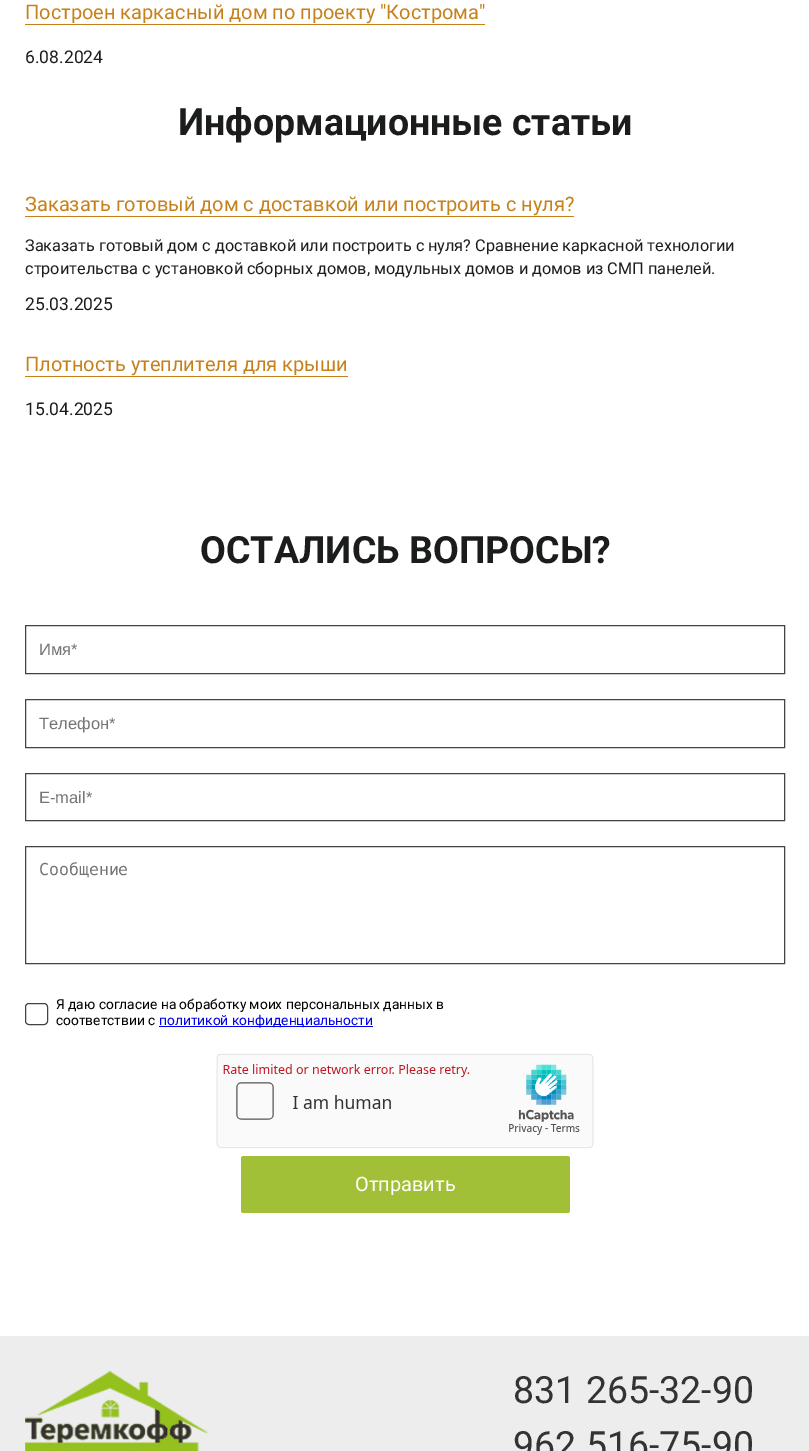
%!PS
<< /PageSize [809 1451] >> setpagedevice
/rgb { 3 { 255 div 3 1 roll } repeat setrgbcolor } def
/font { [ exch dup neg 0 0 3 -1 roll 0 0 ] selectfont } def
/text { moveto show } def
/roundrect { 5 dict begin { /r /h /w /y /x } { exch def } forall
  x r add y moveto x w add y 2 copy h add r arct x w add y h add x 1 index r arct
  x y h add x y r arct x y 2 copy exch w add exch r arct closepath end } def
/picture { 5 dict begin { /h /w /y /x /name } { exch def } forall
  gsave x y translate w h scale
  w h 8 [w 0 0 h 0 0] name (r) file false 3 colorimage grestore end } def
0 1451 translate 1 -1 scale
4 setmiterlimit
255 255 255 rgb
0 0 809 1451 rectfill
199 129 27 rgb
25 24 460 1 rectfill
25 216 549 1 rectfill
25 376 323 1 rectfill
67 67 67 rgb
25.5 625.5 759 48 rectstroke
25.5 699.5 759 48 rectstroke
25.5 773.5 759 47 rectstroke
25.5 846.5 759 117 rectstroke
25.5 1003.5 22 21 3.5 roundrect stroke
0 0 238 rgb
159 1026 214 1 rectfill
(img_01.rgb) 216 1053 378 96 picture
161 191 55 rgb
241 1156 329 57 2.5 roundrect fill
237 237 237 rgb
0 1336 809 115 rectfill
(img_02.rgb) 25 1371 183 80 picture
/Roboto-Regular 20 font
199 129 27 rgb
(Построен каркасный дом по проекту "Кострома") 25 19 text
/Roboto-Regular 17.5 font
27 29 29 rgb
(6.08.2024) 25 63 text
/Roboto-Bold 37.5 font
(Информационные статьи) 178 135 text
/Roboto-Regular 20 font
199 129 27 rgb
(Заказать готовый дом с доставкой или построить с нуля?) 25 211 text
/Roboto-Regular 16.25 font
27 29 29 rgb
(Заказать готовый дом с доставкой или построить с нуля? Сравнение каркасной технологии) 25 251 text
(строительства с установкой сборных домов, модульных домов и домов из СМП панелей.) 25 274 text
/Roboto-Regular 17.5 font
(25.03.2025) 25 310 text
/Roboto-Regular 20 font
199 129 27 rgb
(Плотность утеплителя для крыши) 25 371 text
/Roboto-Regular 17.5 font
27 29 29 rgb
(15.04.2025) 25 415 text
/Roboto-Bold 37.5 font
(ОСТАЛИСЬ ВОПРОСЫ?) 200 563 text
/LiberationSans-Regular 16.5 font
117 117 117 rgb
(Имя*) 39 655 text
(Телефон*) 39 729 text
(E-mail*) 39 803 text
/DejaVuSansMono-Regular 16.5 font
(Сообщение) 39 875 text
/Roboto-Regular 13.75 font
0 0 0 rgb
(Я даю согласие на обработку моих персональных данных в) 56 1009 text
(соответствии с) 56 1025 text
0 0 238 rgb
(политикой конфиденциальности) 159 1025 text
/Roboto-Regular 20 font
255 255 255 rgb
(Отправить) 355 1191 text
/Roboto-Regular 37.5 font
51 51 51 rgb
(831 265-32-90) 513 1403 text
(962 516-75-90) 513 1458 text
showpage
